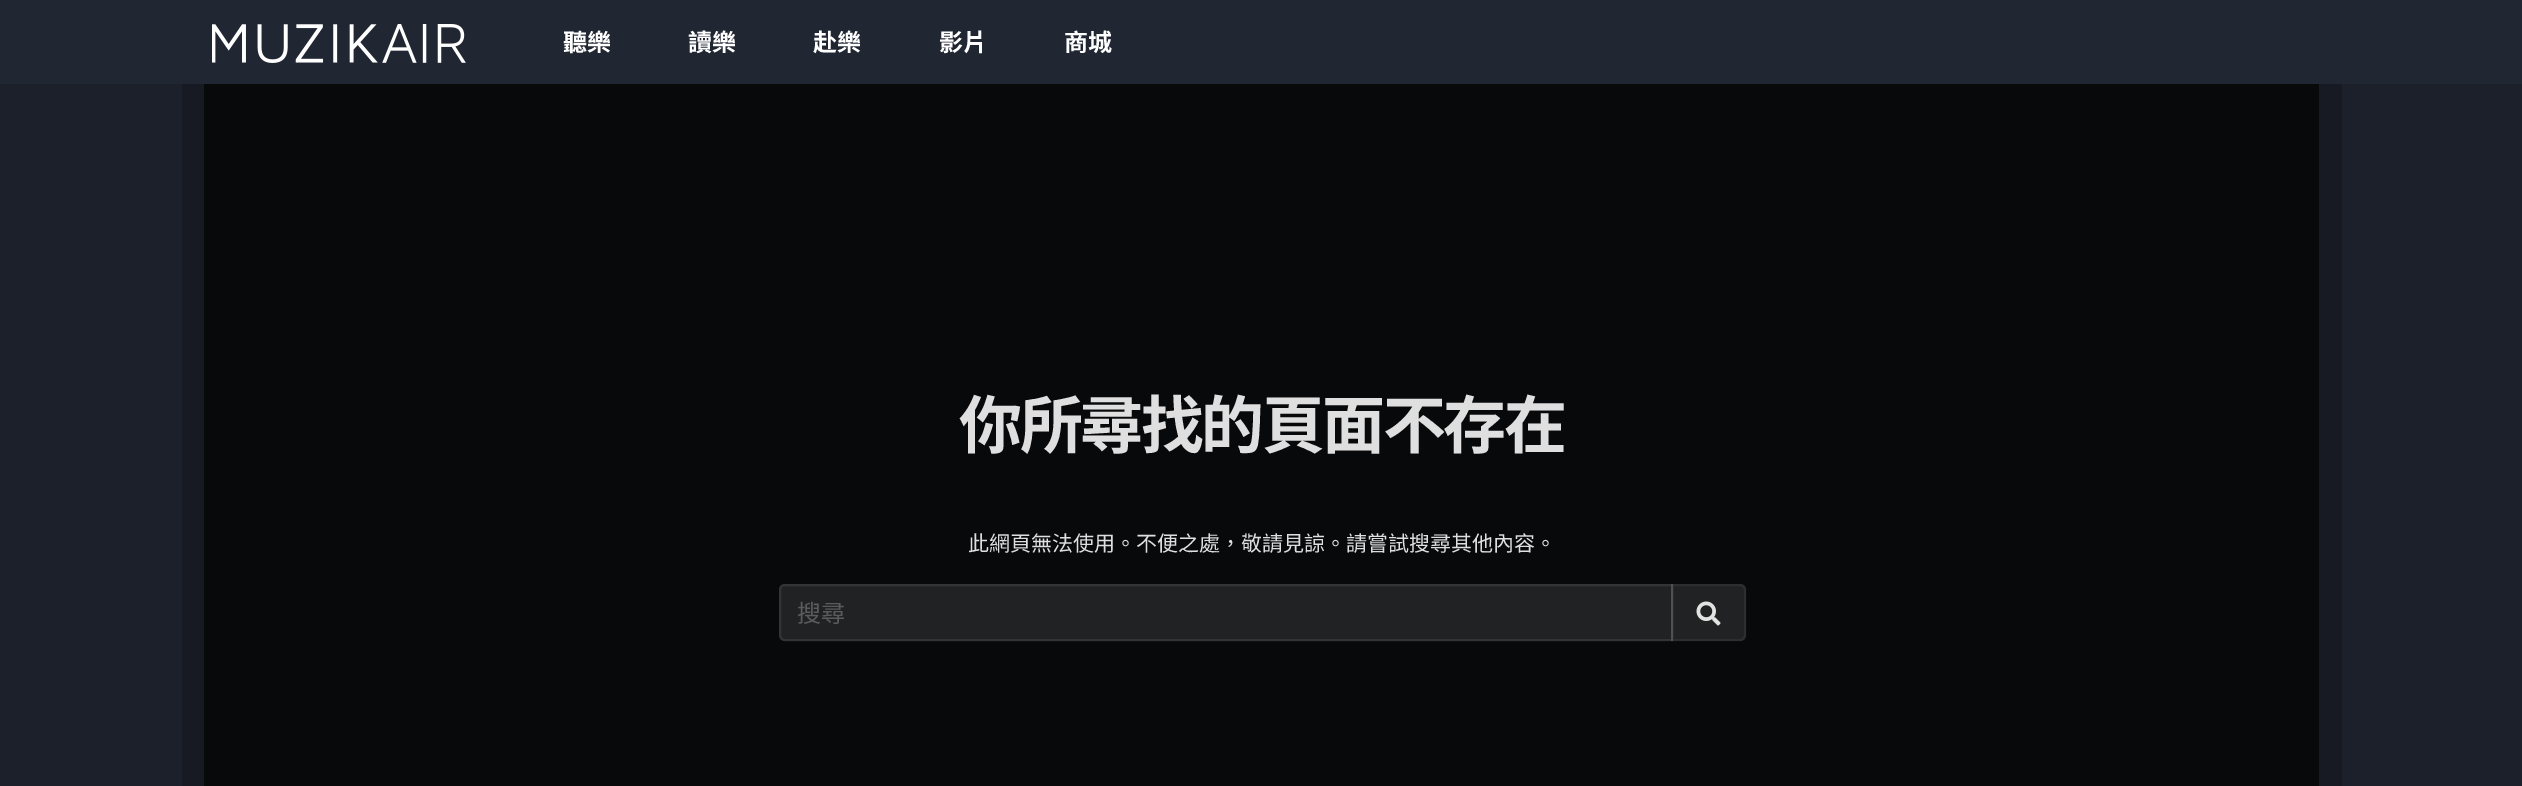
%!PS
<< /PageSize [2522 786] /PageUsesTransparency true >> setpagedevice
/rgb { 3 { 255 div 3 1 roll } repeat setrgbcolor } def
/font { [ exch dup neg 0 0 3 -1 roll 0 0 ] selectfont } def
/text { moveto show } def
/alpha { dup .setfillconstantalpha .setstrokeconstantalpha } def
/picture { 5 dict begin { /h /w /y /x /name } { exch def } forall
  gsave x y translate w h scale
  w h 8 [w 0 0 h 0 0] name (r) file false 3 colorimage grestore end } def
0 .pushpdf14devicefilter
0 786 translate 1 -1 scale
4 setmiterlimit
28 32 43 rgb
0 0 2522 786 rectfill
23 26 35 rgb
182 84 2160 702 rectfill
33 38 51 rgb
0 0 2522 84 rectfill
(img_01.rgb) 212 24 254 39 picture
8 9 10 rgb
204 84 2115 702 rectfill
33 34 35 rgb
785 584 moveto 888 0 rlineto 0 57 rlineto -888 0 rlineto -3.5 0 -6 -2.5 -6 -6 rcurveto 0 -45 rlineto 0 -3.5 2.5 -6 6 -6 rcurveto closepath fill
0.2 alpha
120 130 140 rgb
2 setlinewidth
785 585 moveto 887 0 rlineto 0 55 rlineto -887 0 rlineto -3 0 -5 -2 -5 -5 rcurveto 0 -45 rlineto 0 -3 2 -5 5 -5 rcurveto closepath stroke
0.1 alpha
255 255 255 rgb
1671 584 moveto 69 0 rlineto 3.5 0 6 2.5 6 6 rcurveto 0 45 rlineto 0 3.5 -2.5 6 -6 6 rcurveto -69 0 rlineto closepath fill
0.13 alpha
120 130 140 rgb
1672 585 moveto 68 0 rlineto 3 0 5 2 5 5 rcurveto 0 45 rlineto 0 3 -2 5 -5 5 rcurveto -68 0 rlineto closepath stroke
1 alpha
(img_02.rgb) 1696 601 25 25 picture
/NotoSansTC-Bold 24 font
255 255 255 rgb
(聽樂) 563 51 text
(讀樂) 688 51 text
(赴樂) 813 51 text
(影片) 939 51 text
(商城) 1064 51 text
/NotoSansTC-Bold 63 font
223 223 223 rgb
959 448 moveto -2.5 0 (你所尋找的頁面不存在) ashow
/NotoSansTC-Regular 21 font
(此網頁無法使用。不便之處，敬請見諒。請嘗試搜尋其他內容。) 968 551 text
/NotoSansTC-Regular 24 font
91 91 92 rgb
(搜尋) 797 622 text
.poppdf14devicefilter showpage
